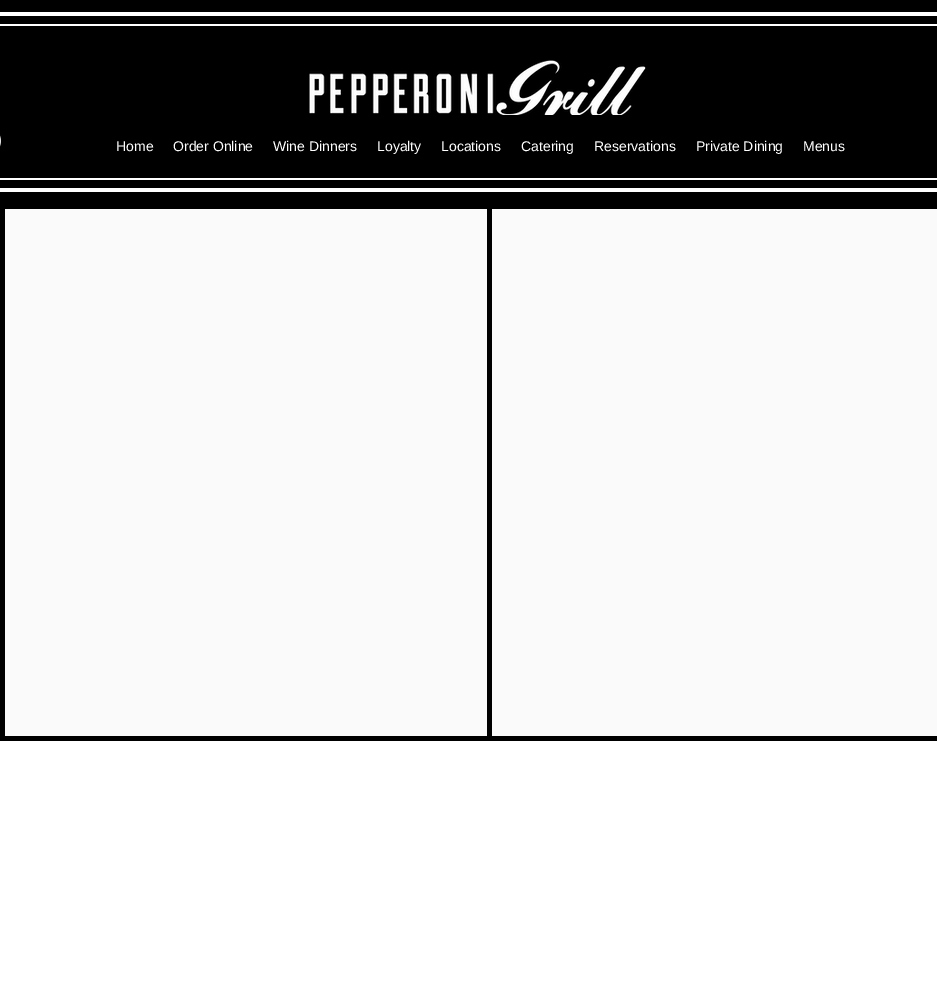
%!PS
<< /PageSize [937 985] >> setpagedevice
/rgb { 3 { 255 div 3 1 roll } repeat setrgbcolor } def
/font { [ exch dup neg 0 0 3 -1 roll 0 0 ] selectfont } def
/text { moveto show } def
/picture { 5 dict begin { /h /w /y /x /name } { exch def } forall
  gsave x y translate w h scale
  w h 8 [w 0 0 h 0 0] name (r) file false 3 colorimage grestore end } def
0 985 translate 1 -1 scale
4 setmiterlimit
255 255 255 rgb
0 0 937 985 rectfill
0 0 0 rgb
0 0 937 741 rectfill
250 250 250 rgb
5 209 482 527 rectfill
492 209 445 527 rectfill
255 255 255 rgb
0 12 937 4 rectfill
0 188 937 4 rectfill
0 24 937 2 rectfill
0 178 937 2 rectfill
(img_01.rgb) 309 60 337 55 picture
(img_02.rgb) 0 135 1 12 picture
/LiberationSans-Regular 14 font
(Home) 116 151 text
(Order Online) 173 151 text
(Wine Dinners) 273 151 text
(Loyalty) 377 151 text
(Locations) 441 151 text
(Catering) 521 151 text
(Reservations) 594 151 text
(Private Dining) 696 151 text
(Menus) 803 151 text
showpage
